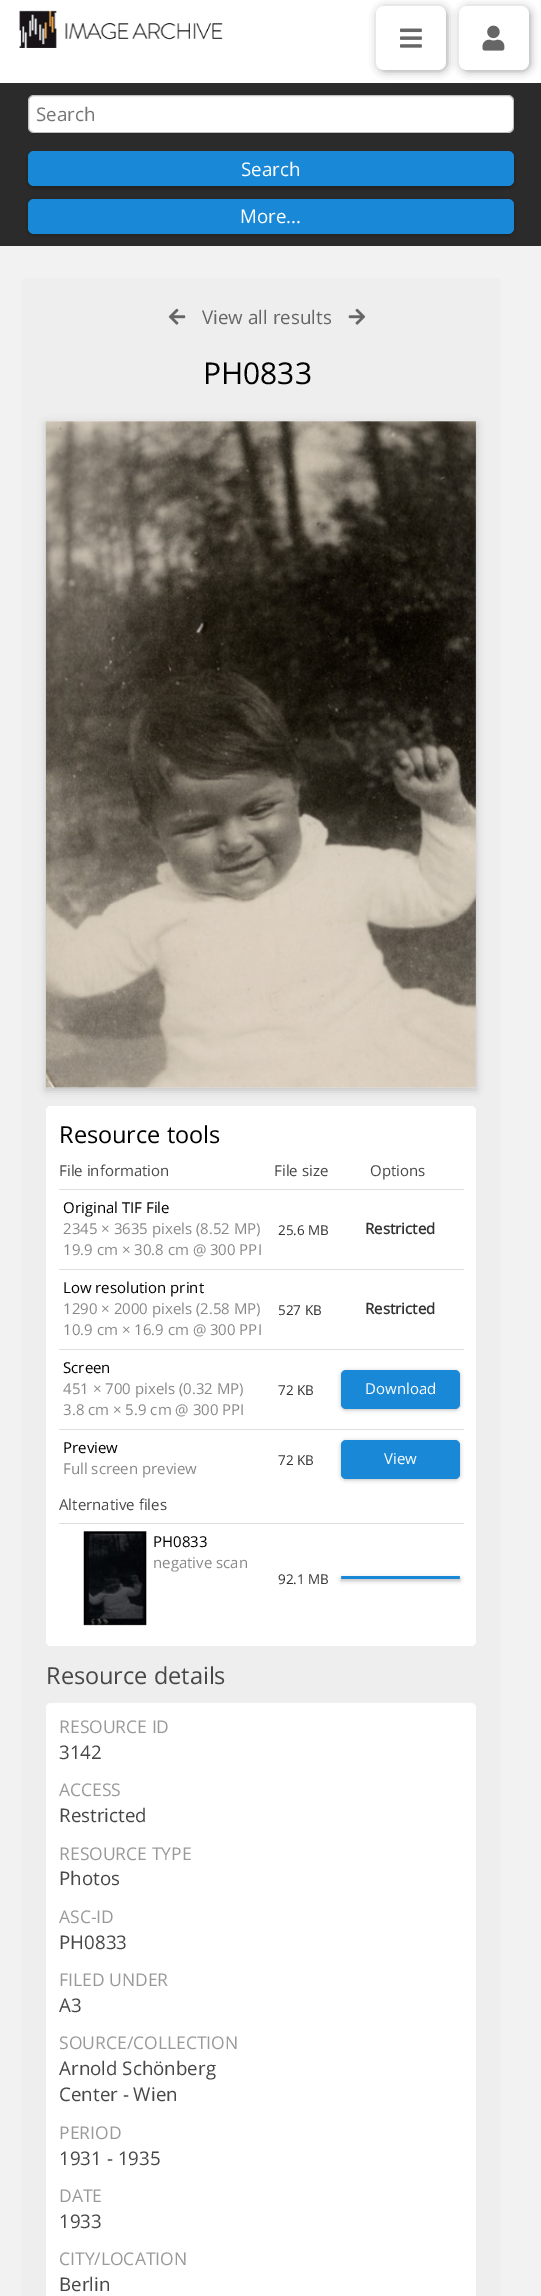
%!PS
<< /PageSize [541 2296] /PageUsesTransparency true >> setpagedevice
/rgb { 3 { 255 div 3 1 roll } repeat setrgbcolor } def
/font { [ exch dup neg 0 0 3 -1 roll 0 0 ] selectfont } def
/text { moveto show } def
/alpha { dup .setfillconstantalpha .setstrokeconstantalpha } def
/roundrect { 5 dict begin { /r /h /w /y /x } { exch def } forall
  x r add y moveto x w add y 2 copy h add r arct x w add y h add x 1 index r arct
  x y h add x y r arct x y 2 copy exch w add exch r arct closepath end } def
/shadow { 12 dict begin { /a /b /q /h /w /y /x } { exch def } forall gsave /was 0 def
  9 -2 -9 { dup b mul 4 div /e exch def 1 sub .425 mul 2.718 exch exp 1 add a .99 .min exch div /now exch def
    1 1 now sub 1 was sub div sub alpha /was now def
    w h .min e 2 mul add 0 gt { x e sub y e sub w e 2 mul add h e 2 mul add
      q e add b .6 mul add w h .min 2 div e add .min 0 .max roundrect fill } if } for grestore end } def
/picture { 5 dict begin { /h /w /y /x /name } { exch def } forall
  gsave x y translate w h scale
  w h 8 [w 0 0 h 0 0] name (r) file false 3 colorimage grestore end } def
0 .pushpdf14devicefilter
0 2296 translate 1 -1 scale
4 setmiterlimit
242 242 242 rgb
0 0 541 2296 rectfill
255 255 255 rgb
0 0 541 83 rectfill
(img_01.rgb) 19 10 204 38 picture
102 102 102 rgb
463 10 65 59 5 5 1 shadow
255 255 255 rgb
459 6 70 64 8 roundrect fill
102 102 102 rgb
380 10 65 59 5 5 1 shadow
255 255 255 rgb
376 6 70 64 8 roundrect fill
(img_02.rgb) 400 28 22 20 picture
(img_03.rgb) 482 25 23 26 picture
43 43 43 rgb
0 83 541 163 rectfill
255 255 255 rgb
28 95 486 38 6 roundrect fill
0.25 alpha
0 0 0 rgb
28.5 95.5 485 37 5.5 roundrect stroke
1 alpha
28 153 486 35 6 2 0.25 shadow
25 136 215 rgb
28 151 486 35 6 roundrect fill
0 0 0 rgb
28 200 486 35 6 2 0.25 shadow
25 136 215 rgb
28 199 486 35 6 roundrect fill
238 238 238 rgb
21 278 480 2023 5 roundrect fill
(img_04.rgb) 168 308 18 17 picture
(img_05.rgb) 348 308 18 17 picture
0 0 0 rgb
46 424 430 666 0 4 0.2 shadow
(img_06.rgb) 46 421 430 668 picture
255 255 255 rgb
46 1106 430 540 5 roundrect fill
221 221 221 rgb
59 1189 405 1 rectfill
59 1269 405 1 rectfill
59 1349 405 1 rectfill
0 0 0 rgb
341 1371 119 39 5 2 0.25 shadow
25 136 215 rgb
341 1370 119 39 5 roundrect fill
221 221 221 rgb
59 1429 405 1 rectfill
0 0 0 rgb
341 1441 119 39 5 2 0.25 shadow
25 136 215 rgb
341 1440 119 39 5 roundrect fill
221 221 221 rgb
59 1523 405 1 rectfill
(img_07.rgb) 83 1531 64 95 picture
0 0 0 rgb
341 1578 119 3 1.5 2 0.25 shadow
25 136 215 rgb
341 1576 119 3 1.5 roundrect fill
255 255 255 rgb
46 1703 430 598 5 roundrect fill
/OpenSans-Regular 18.75 font
117 117 117 rgb
(Search) 36 121 text
255 255 255 rgb
(Search) 241 176 text
(More...) 240 223 text
102 102 102 rgb
(View all results) 202 324 text
/OpenSans-Regular 30 font
0 0 0 rgb
(PH0833) 203 384 text
/OpenSans-Regular 23.5 font
(Resource tools) 59 1143 text
/OpenSans-Regular 15 font
71 71 71 rgb
(File information) 59 1176 text
(File size) 274 1176 text
(Options) 370 1176 text
0 0 0 rgb
(Original TIF File) 63 1213 text
136 136 136 rgb
(2345 × 3635 pixels \(8.52 MP\)) 63 1234 text
(19.9 cm × 30.8 cm @ 300 PPI) 63 1255 text
/OpenSans-Regular 13.5 font
51 51 51 rgb
(25.6 MB) 278 1235 text
/OpenSans-Bold 15 font
(Restricted) 365 1234 text
/OpenSans-Regular 15 font
0 0 0 rgb
(Low resolution print) 63 1293 text
136 136 136 rgb
(1290 × 2000 pixels \(2.58 MP\)) 63 1314 text
(10.9 cm × 16.9 cm @ 300 PPI) 63 1335 text
/OpenSans-Regular 13.5 font
51 51 51 rgb
(527 KB) 278 1315 text
/OpenSans-Bold 15 font
(Restricted) 365 1314 text
/OpenSans-Regular 15 font
0 0 0 rgb
(Screen) 63 1373 text
136 136 136 rgb
(451 × 700 pixels \(0.32 MP\)) 63 1394 text
(3.8 cm × 5.9 cm @ 300 PPI) 63 1415 text
/OpenSans-Regular 13.5 font
51 51 51 rgb
(72 KB) 278 1395 text
/OpenSans-Regular 15 font
255 255 255 rgb
(Download) 365 1394 text
0 0 0 rgb
(Preview) 63 1453 text
136 136 136 rgb
(Full screen preview) 63 1474 text
/OpenSans-Regular 13.5 font
51 51 51 rgb
(72 KB) 278 1465 text
/OpenSans-Regular 15 font
255 255 255 rgb
(View) 384 1464 text
71 71 71 rgb
(Alternative files) 59 1510 text
0 0 0 rgb
(PH0833) 153 1547 text
136 136 136 rgb
(negative scan) 153 1568 text
/OpenSans-Regular 13.5 font
51 51 51 rgb
(92.1 MB) 278 1584 text
/OpenSans-Regular 23.5 font
71 71 71 rgb
(Resource details) 46 1684 text
/OpenSans-Regular 17.5 font
153 153 153 rgb
(RESOURCE ID) 59 1733 text
/OpenSans-Regular 18.75 font
71 71 71 rgb
(3142) 59 1759 text
/OpenSans-Regular 17.5 font
153 153 153 rgb
(ACCESS) 59 1796 text
/OpenSans-Regular 18.75 font
71 71 71 rgb
(Restricted) 59 1822 text
/OpenSans-Regular 17.5 font
153 153 153 rgb
(RESOURCE TYPE) 59 1860 text
/OpenSans-Regular 18.75 font
71 71 71 rgb
(Photos) 59 1885 text
/OpenSans-Regular 17.5 font
153 153 153 rgb
(ASC-ID) 59 1923 text
/OpenSans-Regular 18.75 font
71 71 71 rgb
(PH0833) 59 1949 text
/OpenSans-Regular 17.5 font
153 153 153 rgb
(FILED UNDER) 59 1986 text
/OpenSans-Regular 18.75 font
71 71 71 rgb
(A3) 59 2012 text
/OpenSans-Regular 17.5 font
153 153 153 rgb
(SOURCE/COLLECTION) 59 2049 text
/OpenSans-Regular 18.75 font
71 71 71 rgb
(Arnold Schönberg) 59 2075 text
(Center - Wien) 59 2101 text
/OpenSans-Regular 17.5 font
153 153 153 rgb
(PERIOD) 59 2139 text
/OpenSans-Regular 18.75 font
71 71 71 rgb
(1931 - 1935) 59 2165 text
/OpenSans-Regular 17.5 font
153 153 153 rgb
(DATE) 59 2202 text
/OpenSans-Regular 18.75 font
71 71 71 rgb
(1933) 59 2228 text
/OpenSans-Regular 17.5 font
153 153 153 rgb
(CITY/LOCATION) 59 2265 text
/OpenSans-Regular 18.75 font
71 71 71 rgb
(Berlin) 59 2291 text
.poppdf14devicefilter showpage
